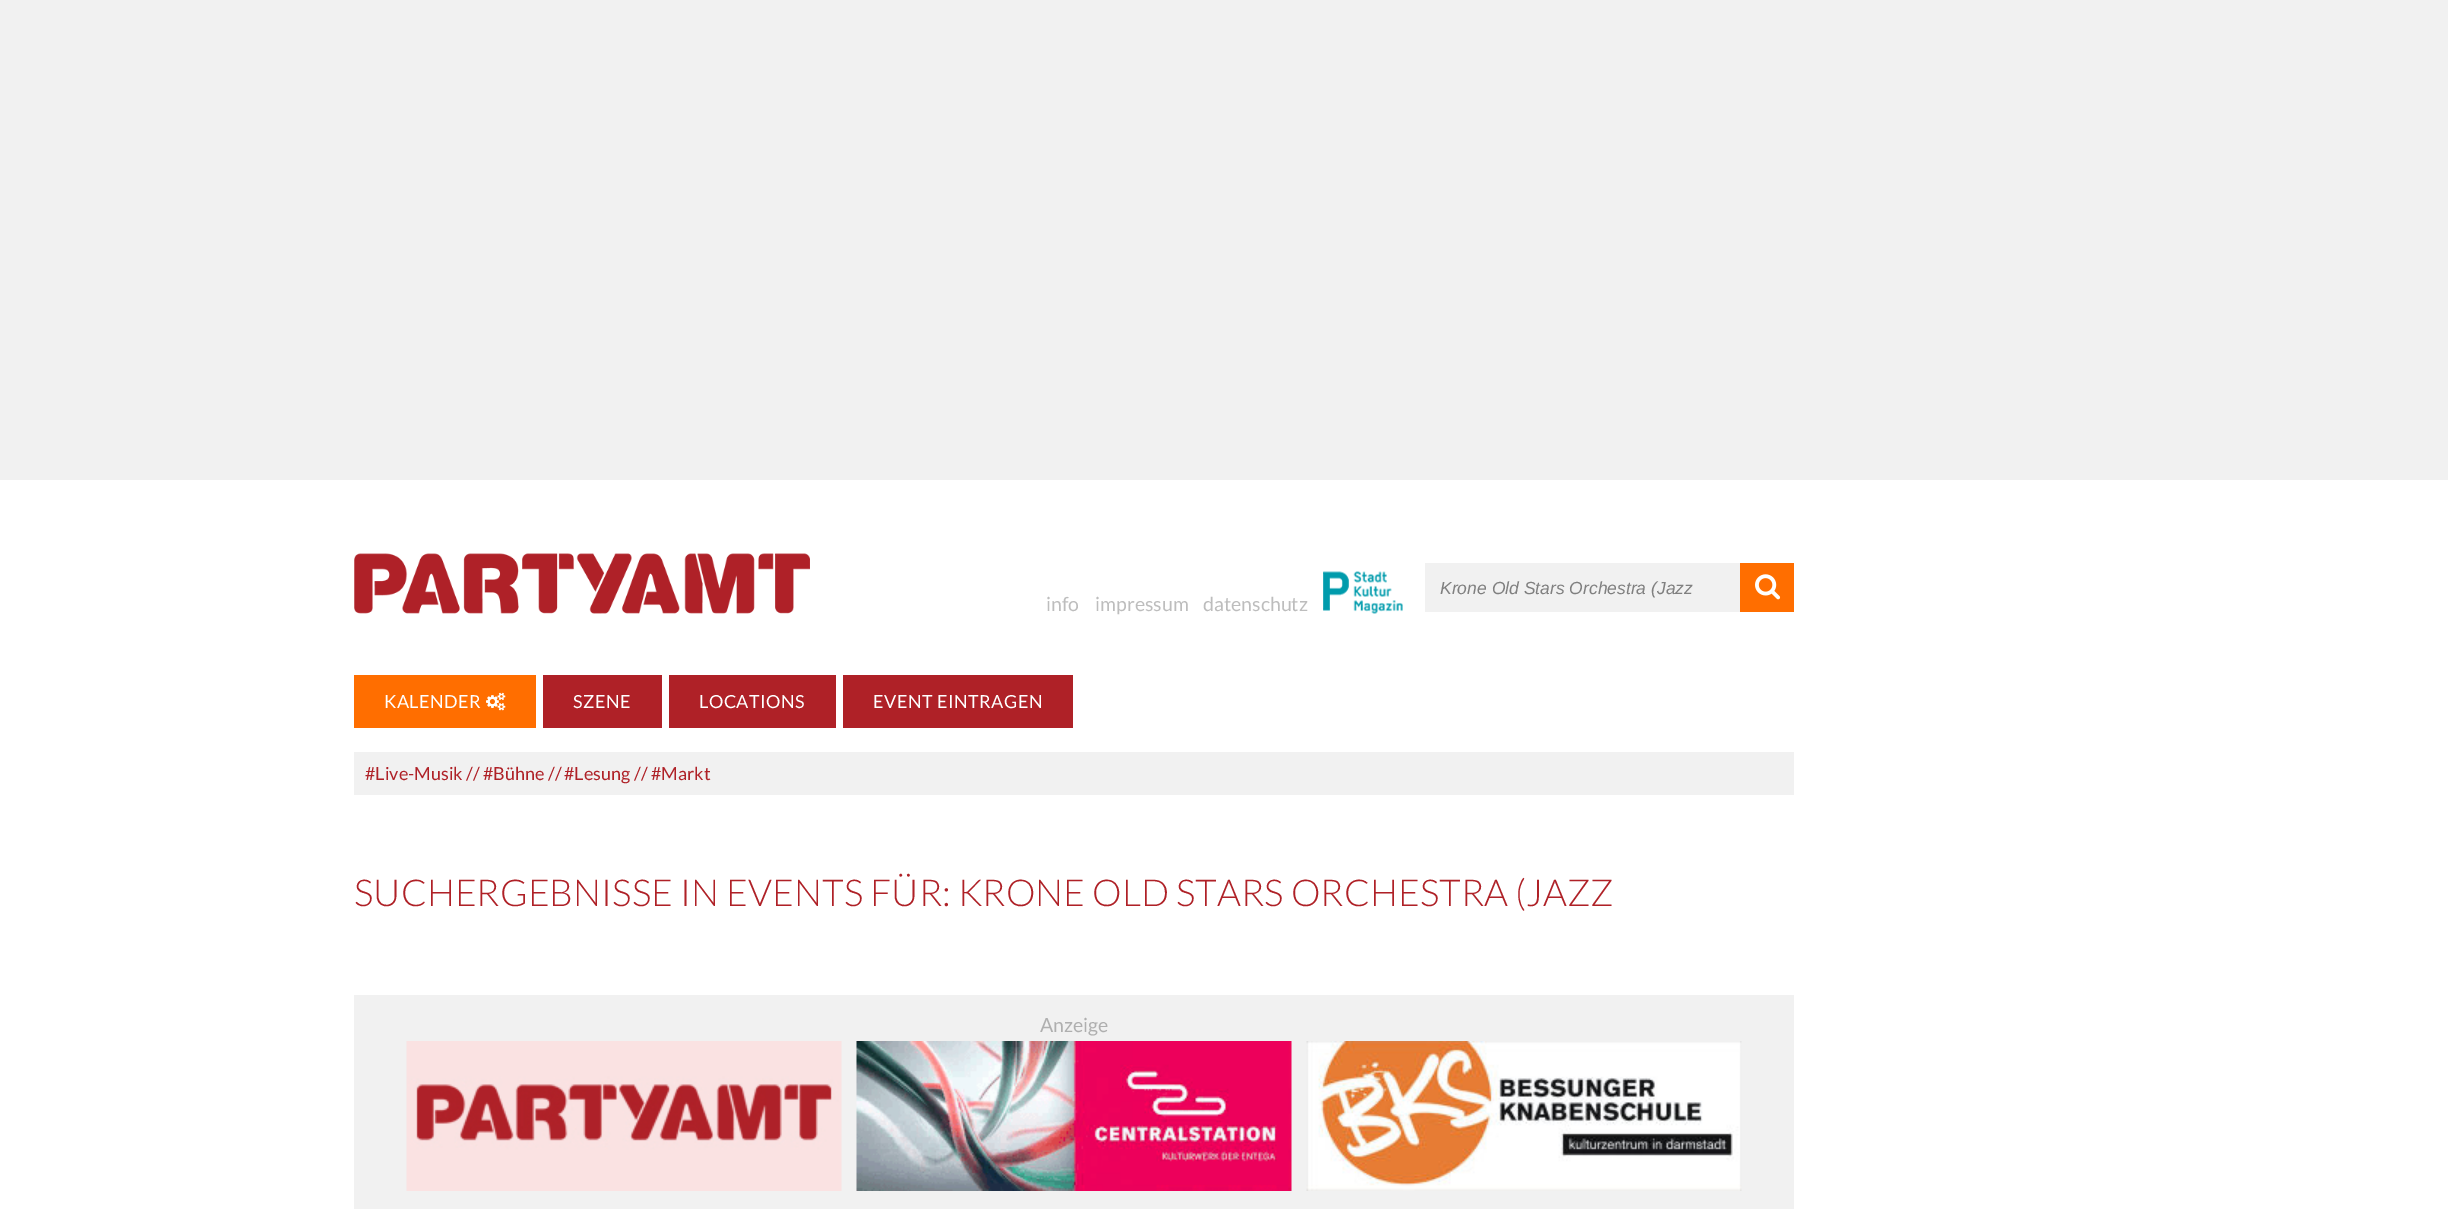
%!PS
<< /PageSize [2448 1209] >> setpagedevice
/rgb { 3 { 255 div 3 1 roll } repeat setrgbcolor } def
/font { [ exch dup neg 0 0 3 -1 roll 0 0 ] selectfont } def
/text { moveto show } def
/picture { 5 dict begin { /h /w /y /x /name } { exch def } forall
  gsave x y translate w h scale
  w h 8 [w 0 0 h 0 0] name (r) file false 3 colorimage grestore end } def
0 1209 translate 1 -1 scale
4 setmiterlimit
255 255 255 rgb
0 0 2448 1209 rectfill
241 241 241 rgb
0 0 2448 480 rectfill
(img_01.rgb) 354 553 456 61 picture
1425 563 315 49 rectfill
255 110 0 rgb
1740 563 54 49 rectfill
(img_02.rgb) 1755 574 26 26 picture
(img_03.rgb) 1323 571 80 43 picture
354 675 182 53 rectfill
(img_04.rgb) 486 692 20 19 picture
175 33 39 rgb
543 675 119 53 rectfill
669 675 167 53 rectfill
843 675 230 53 rectfill
241 241 241 rgb
354 752 1440 43 rectfill
354 995 1440 214 rectfill
(img_05.rgb) 406 1041 436 150 picture
(img_06.rgb) 856 1041 436 150 picture
(img_07.rgb) 1306 1041 436 150 picture
/LiberationSans-Italic 17.5 font
128 128 128 rgb
(Krone Old Stars Orchestra \(Jazz) 1440 594 text
/Lato-Regular 19.5 font
189 189 189 rgb
(info) 1046 611 text
(impressum) 1095 611 text
(datenschutz) 1203 611 text
/Lato-Regular 18 font
255 255 255 rgb
384 708 moveto 0.5 0 (KALENDER) ashow
573 708 moveto 0.5 0 (SZENE) ashow
699 708 moveto 0.5 0 (LOCATIONS) ashow
873 708 moveto 0.5 0 (EVENT EINTRAGEN) ashow
175 33 39 rgb
(#Live-Musik) 365 780 text
(//) 466 780 text
(#Bühne) 483 780 text
(//) 548 780 text
(#Lesung) 564 780 text
(//) 634 780 text
(#Markt) 651 780 text
/Lato-Light 37.05 font
(SUCHERGEBNISSE IN EVENTS FÜR: KRONE OLD STARS ORCHESTRA \(JAZZ) 354 906 text
/Lato-Regular 19.5 font
175 175 175 rgb
(Anzeige) 1040 1032 text
showpage
